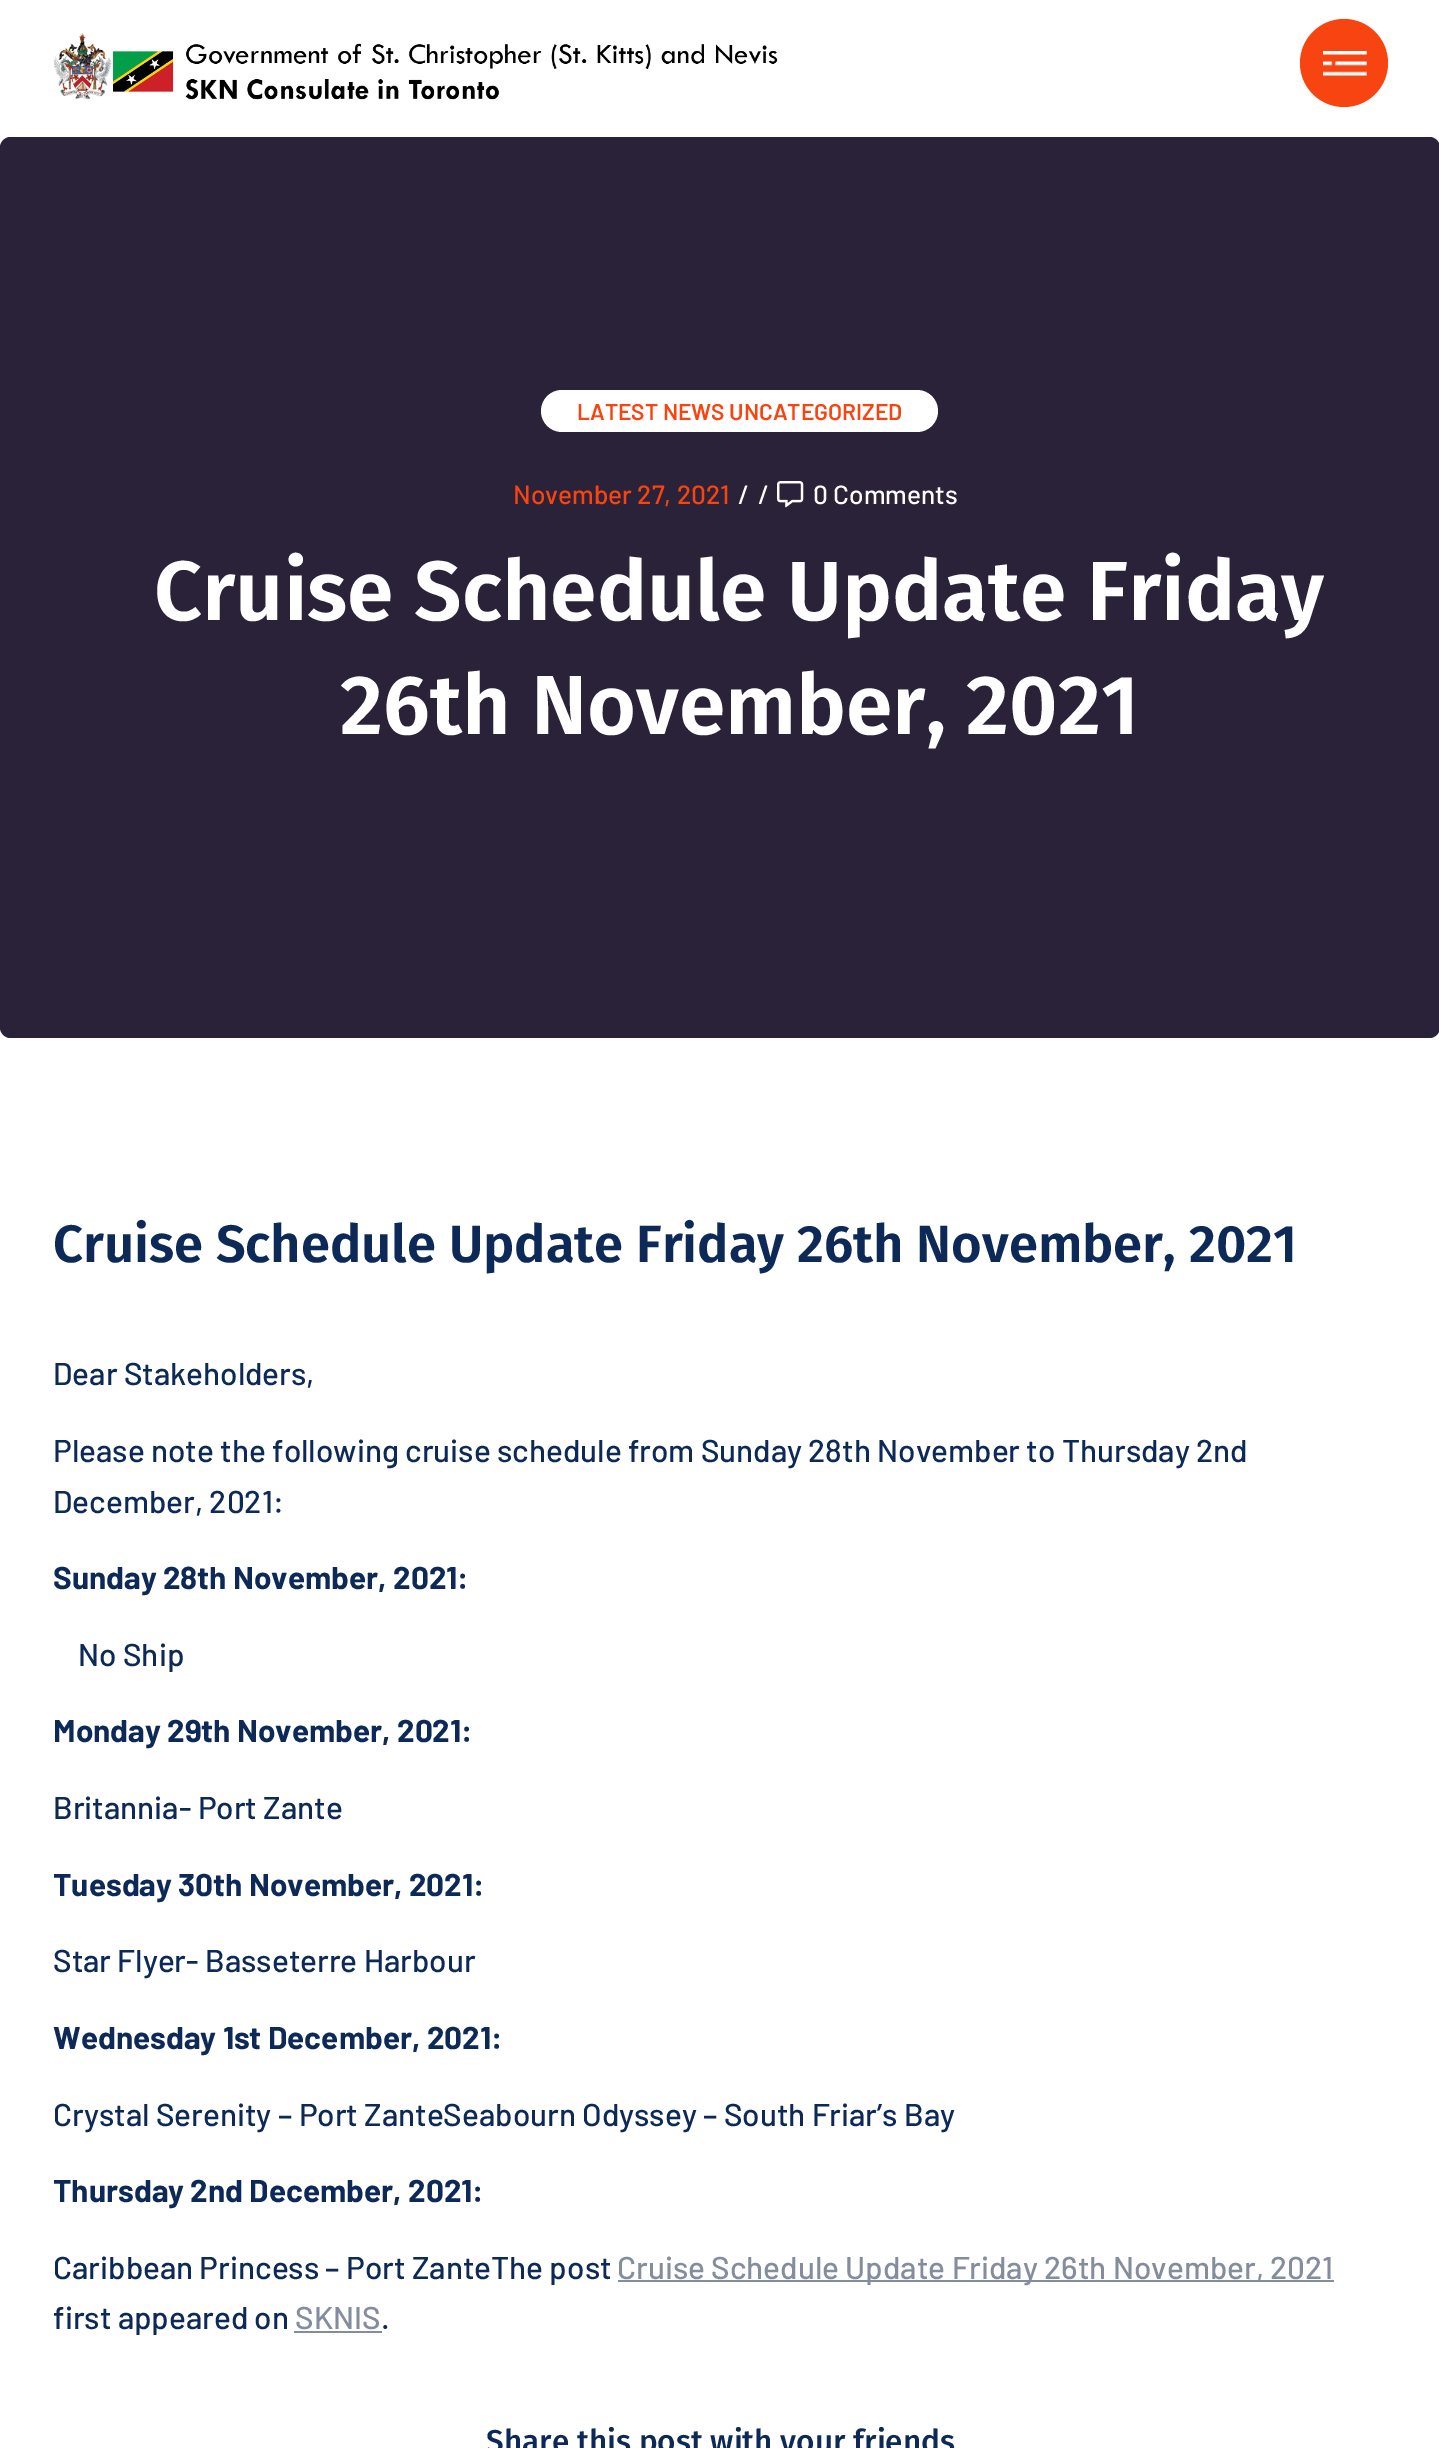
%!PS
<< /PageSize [1439 2448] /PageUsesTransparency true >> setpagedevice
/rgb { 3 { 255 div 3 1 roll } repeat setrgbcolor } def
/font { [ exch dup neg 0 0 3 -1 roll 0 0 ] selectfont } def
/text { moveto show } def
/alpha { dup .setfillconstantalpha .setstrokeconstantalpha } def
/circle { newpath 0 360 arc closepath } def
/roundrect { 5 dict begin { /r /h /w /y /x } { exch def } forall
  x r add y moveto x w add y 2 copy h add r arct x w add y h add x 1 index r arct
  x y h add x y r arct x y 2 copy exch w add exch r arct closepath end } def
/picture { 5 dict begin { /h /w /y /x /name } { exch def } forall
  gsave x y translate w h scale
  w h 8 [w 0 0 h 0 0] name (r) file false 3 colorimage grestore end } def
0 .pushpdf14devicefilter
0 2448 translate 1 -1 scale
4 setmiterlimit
255 255 255 rgb
0 0 1439 2448 rectfill
(img_01.rgb) 53 33 725 67 picture
248 68 17 rgb
1344 63 44 circle fill
(img_02.rgb) 1323 51 44 25 picture
100 100 100 rgb
0 137 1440 901 11 roundrect fill
0.85 alpha
32 22 48 rgb
0 137 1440 901 11 roundrect fill
1 alpha
255 255 255 rgb
541 390 397 42 21 roundrect fill
(img_03.rgb) 777 481 27 27 picture
131 141 158 rgb
618 2280 716 2 rectfill
294 2331 88 2 rectfill
/Barlow-SemiBold 22.75 font
248 68 17 rgb
(LATEST NEWS UNCATEGORIZED) 577 420 text
/Barlow-Medium 26.25 font
(November 27, 2021) 513 504 text
255 255 255 rgb
(/) 738 504 text
(/) 758 504 text
(0 Comments) 813 504 text
/FiraSans-SemiBold 84 font
(Cruise Schedule Update Friday) 154 620 text
(26th November, 2021) 340 734 text
/FiraSans-SemiBold 52.5 font
12 41 87 rgb
(Cruise Schedule Update Friday 26th November, 2021) 53 1262 text
/Barlow-Medium 31.5 font
(Dear Stakeholders,) 53 1385 text
(Please note the following cruise schedule from Sunday 28th November to Thursday 2nd) 53 1462 text
(December, 2021:) 53 1513 text
/Barlow-Bold 31.5 font
(Sunday 28th November, 2021:) 53 1589 text
/Barlow-Medium 31.5 font
(No Ship) 78 1666 text
/Barlow-Bold 31.5 font
(Monday 29th November, 2021:) 53 1742 text
/Barlow-Medium 31.5 font
(Britannia- Port Zante) 53 1819 text
/Barlow-Bold 31.5 font
(Tuesday 30th November, 2021:) 53 1896 text
/Barlow-Medium 31.5 font
(Star Flyer- Basseterre Harbour) 53 1972 text
/Barlow-Bold 31.5 font
(Wednesday 1st December, 2021:) 53 2049 text
/Barlow-Medium 31.5 font
(Crystal Serenity – Port ZanteSeabourn Odyssey – South Friar’s Bay) 53 2126 text
/Barlow-Bold 31.5 font
(Thursday 2nd December, 2021:) 53 2202 text
/Barlow-Medium 31.5 font
(Caribbean Princess – Port ZanteThe post) 53 2279 text
131 141 158 rgb
(Cruise Schedule Update Friday 26th November, 2021) 617 2279 text
12 41 87 rgb
(first appeared on) 53 2329 text
131 141 158 rgb
(SKNIS) 295 2329 text
12 41 87 rgb
(.) 381 2329 text
/FiraSans-Medium 31.5 font
(Share this post with your friends) 486 2452 text
.poppdf14devicefilter showpage
